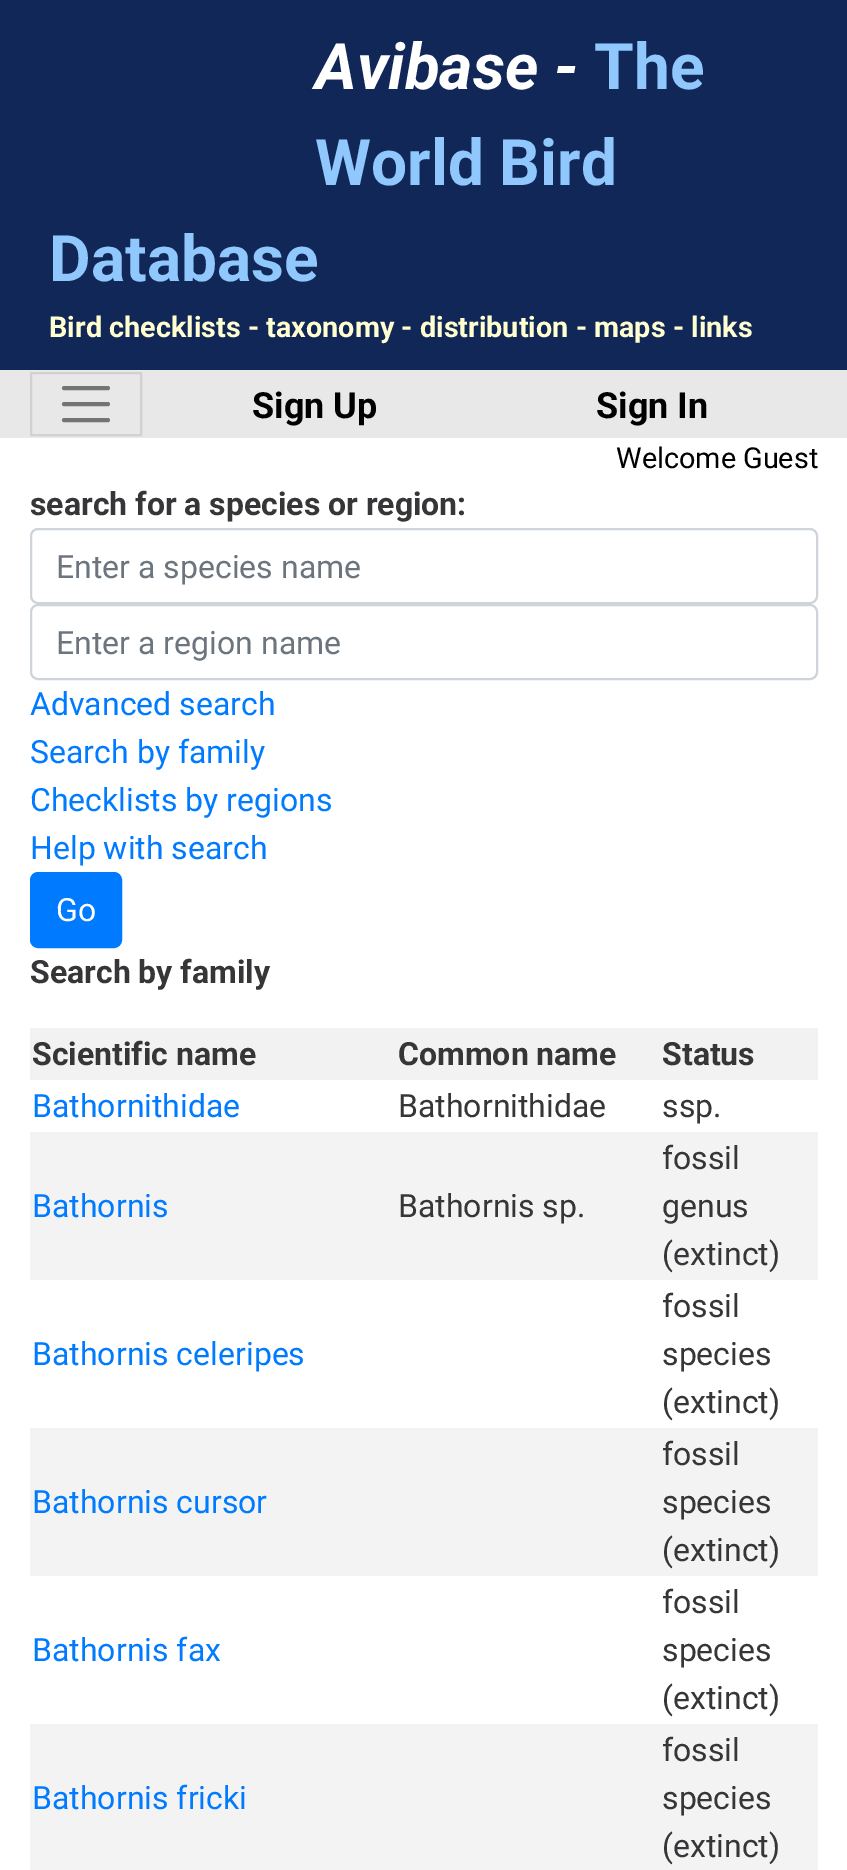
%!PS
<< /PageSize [847 1870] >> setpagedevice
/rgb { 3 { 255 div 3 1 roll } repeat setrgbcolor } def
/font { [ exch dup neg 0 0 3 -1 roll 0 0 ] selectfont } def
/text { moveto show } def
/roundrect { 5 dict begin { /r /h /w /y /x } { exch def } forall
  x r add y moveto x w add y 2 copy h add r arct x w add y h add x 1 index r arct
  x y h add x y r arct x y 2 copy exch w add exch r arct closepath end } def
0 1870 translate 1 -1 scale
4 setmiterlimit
255 255 255 rgb
0 0 847 1870 rectfill
17 39 88 rgb
0 0 847 370 rectfill
232 232 232 rgb
0 370 847 68 rectfill
209 209 209 rgb
2 setlinewidth
31 373 110 62 rectstroke
116 116 116 rgb
4 setlinewidth
1 setlinecap
64 388 moveto 44 0 rlineto 64 404 moveto 44 0 rlineto 64 420 moveto 44 0 rlineto stroke
206 212 218 rgb
2 setlinewidth
0 setlinecap
31 529 786 74 7 roundrect stroke
31 605 786 74 7 roundrect stroke
0 123 255 rgb
31 873 90 74 7 roundrect gsave fill grestore
stroke
242 242 242 rgb
30 1028 788 52 rectfill
243 243 243 rgb
30 1132 788 148 rectfill
30 1428 788 148 rectfill
30 1724 788 146 rectfill
/Roboto-BoldItalic 64 font
255 255 255 rgb
(Avibase -) 315 89 text
/Roboto-Bold 64 font
144 200 253 rgb
(The) 594 89 text
(World Bird) 315 185 text
(Database) 49 281 text
/Roboto-Bold 28.8 font
255 255 208 rgb
(Bird checklists - taxonomy - distribution - maps - links) 49 337 text
/Roboto-Bold 36 font
0 0 0 rgb
(Sign Up) 252 418 text
(Sign In) 596 418 text
/Roboto-Regular 28.8 font
(Welcome Guest) 616 468 text
/Roboto-Bold 32 font
54 53 55 rgb
(search for a species or region:) 30 515 text
/Roboto-Regular 32 font
108 117 125 rgb
(Enter a species name) 56 578 text
(Enter a region name) 56 654 text
0 123 255 rgb
(Advanced search) 30 715 text
(Search by family) 30 763 text
(Checklists by regions) 30 811 text
(Help with search) 30 859 text
255 255 255 rgb
(Go) 56 921 text
/Roboto-Bold 32 font
54 53 55 rgb
(Search by family) 30 983 text
(Scientific name) 32 1065 text
(Common name) 398 1065 text
(Status) 662 1065 text
/Roboto-Regular 32 font
0 123 255 rgb
(Bathornithidae) 32 1117 text
54 53 55 rgb
(Bathornithidae) 398 1117 text
(ssp.) 662 1117 text
0 123 255 rgb
(Bathornis) 32 1217 text
54 53 55 rgb
(Bathornis sp.) 398 1217 text
(fossil) 662 1169 text
(genus) 662 1217 text
(\(extinct\)) 662 1265 text
0 123 255 rgb
(Bathornis celeripes) 32 1365 text
54 53 55 rgb
(fossil) 662 1317 text
(species) 662 1365 text
(\(extinct\)) 662 1413 text
0 123 255 rgb
(Bathornis cursor) 32 1513 text
54 53 55 rgb
(fossil) 662 1465 text
(species) 662 1513 text
(\(extinct\)) 662 1561 text
0 123 255 rgb
(Bathornis fax) 32 1661 text
54 53 55 rgb
(fossil) 662 1613 text
(species) 662 1661 text
(\(extinct\)) 662 1709 text
0 123 255 rgb
(Bathornis fricki) 32 1809 text
54 53 55 rgb
(fossil) 662 1761 text
(species) 662 1809 text
(\(extinct\)) 662 1857 text
showpage
